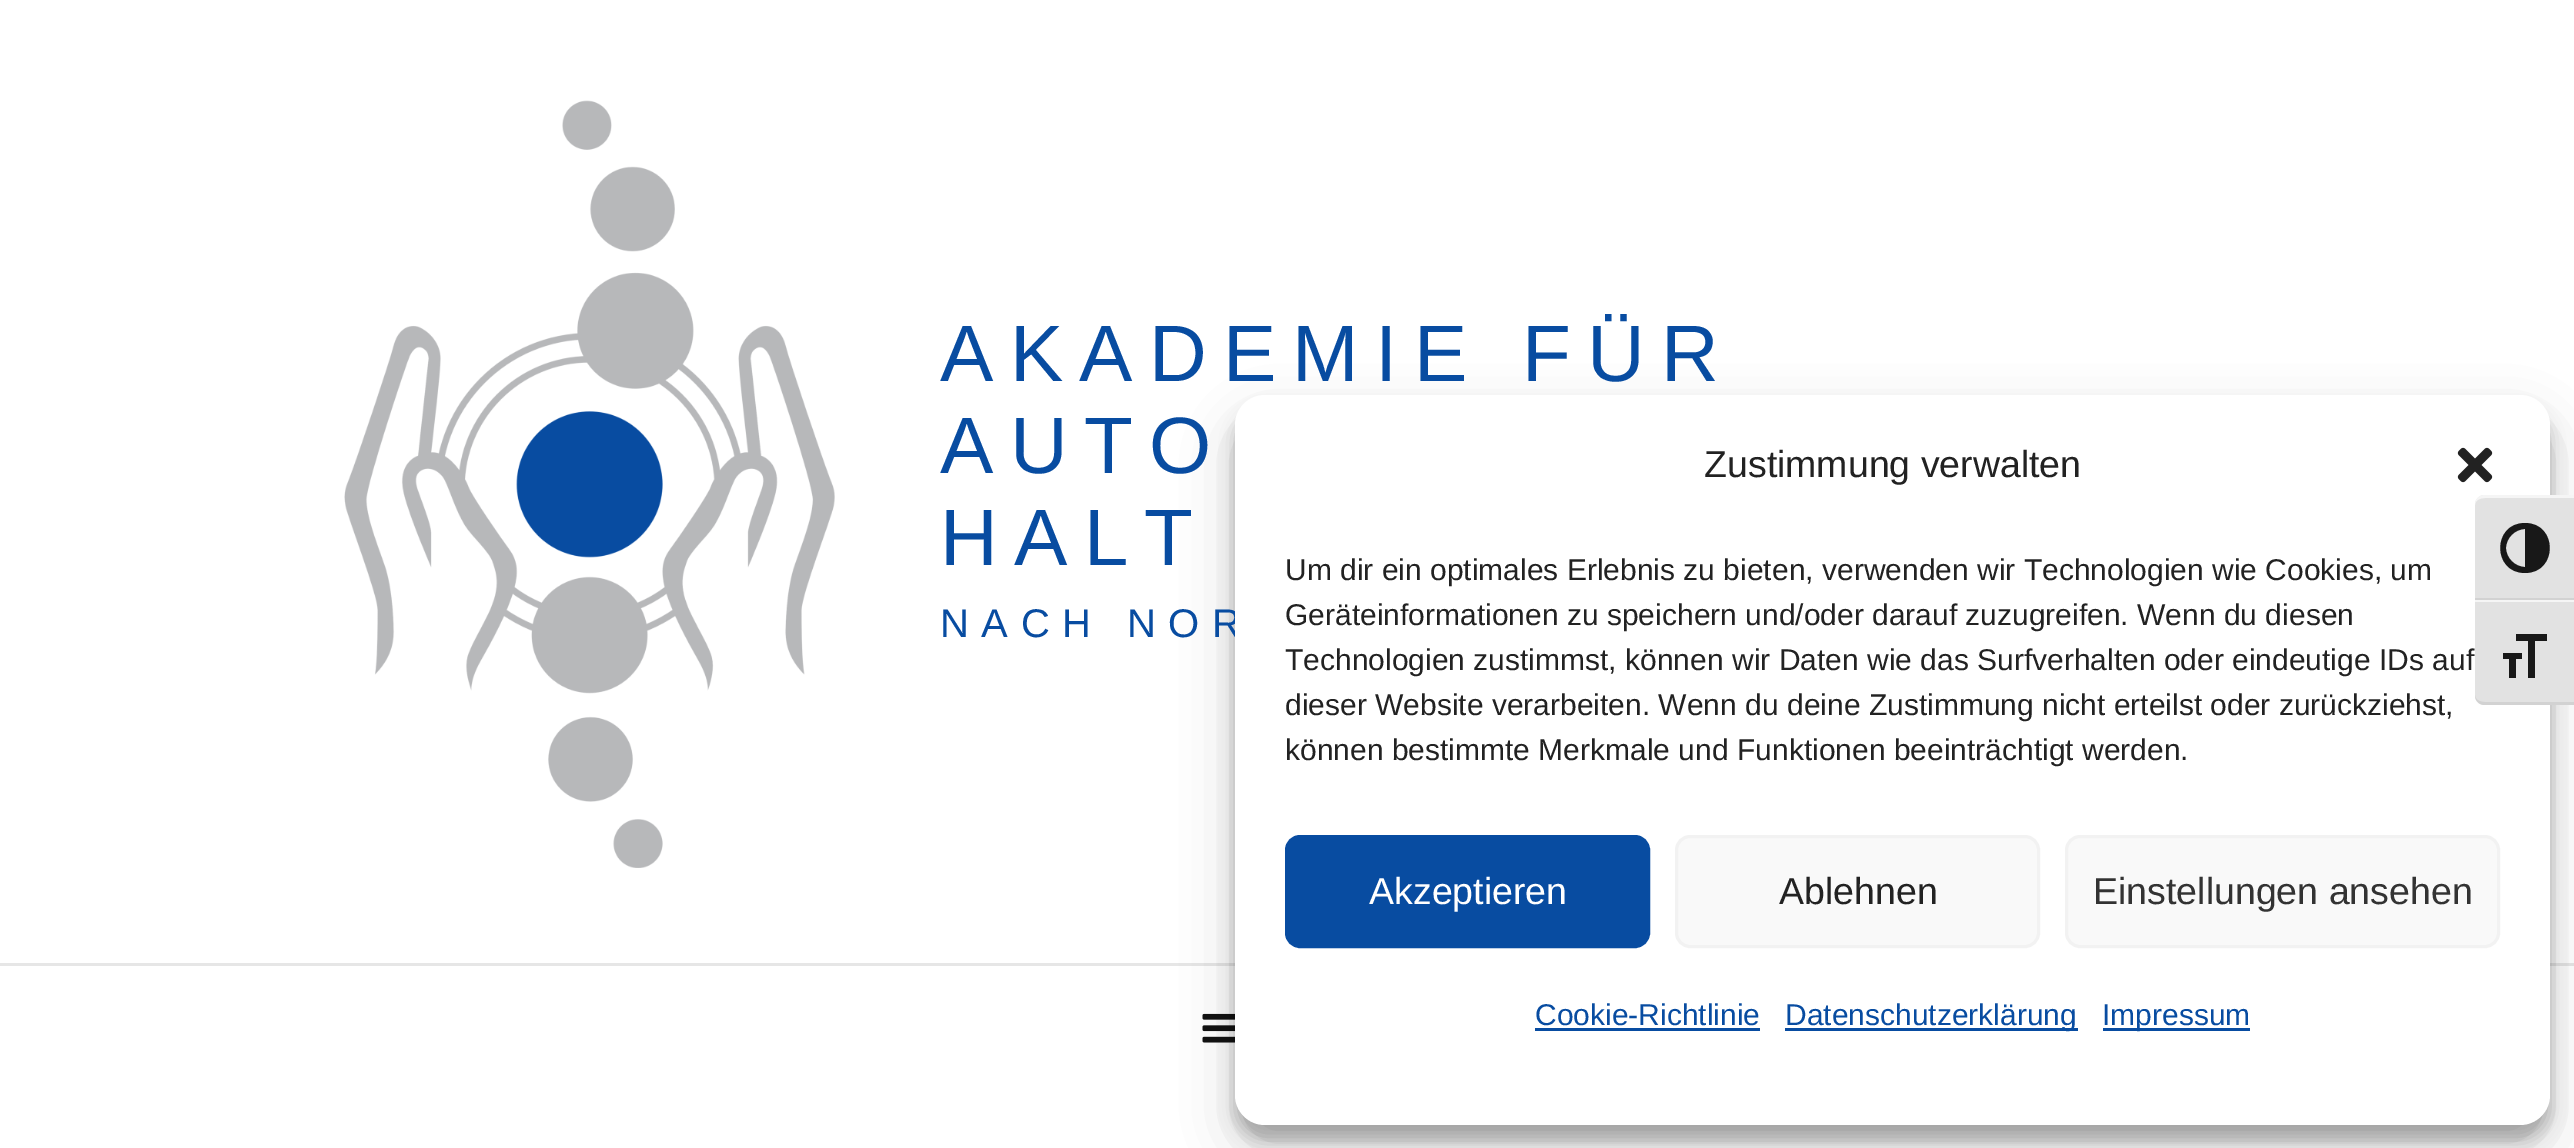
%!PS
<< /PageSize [2574 1148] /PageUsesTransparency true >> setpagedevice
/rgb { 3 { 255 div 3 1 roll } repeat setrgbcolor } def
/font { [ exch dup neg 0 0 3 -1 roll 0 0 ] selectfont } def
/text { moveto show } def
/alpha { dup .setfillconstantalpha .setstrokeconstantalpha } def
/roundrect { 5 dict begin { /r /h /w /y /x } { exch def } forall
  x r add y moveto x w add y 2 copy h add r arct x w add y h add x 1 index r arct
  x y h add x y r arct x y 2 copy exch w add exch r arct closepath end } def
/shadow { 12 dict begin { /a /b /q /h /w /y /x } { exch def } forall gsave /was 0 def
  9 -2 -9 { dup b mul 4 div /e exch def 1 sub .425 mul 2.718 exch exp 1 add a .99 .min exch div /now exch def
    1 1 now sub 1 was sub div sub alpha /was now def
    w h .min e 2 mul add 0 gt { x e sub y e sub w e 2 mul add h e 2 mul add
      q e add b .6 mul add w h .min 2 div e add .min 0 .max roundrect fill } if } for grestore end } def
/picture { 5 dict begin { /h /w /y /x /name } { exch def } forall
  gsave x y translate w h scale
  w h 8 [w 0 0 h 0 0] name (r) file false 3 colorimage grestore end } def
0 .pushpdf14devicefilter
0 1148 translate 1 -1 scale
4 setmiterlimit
255 255 255 rgb
0 0 2574 1148 rectfill
(img_01.rgb) 344 100 491 768 picture
230 230 230 rgb
0 963 2574 3 rectfill
(img_02.rgb) 1202 1013 33 30 picture
0 0 0 rgb
1235 410 1315 730 30 7.5 0.23 shadow
1235 420 1315 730 30 25 0.19 shadow
/LiberationSans-Regular 80 font
8 76 161 rgb
940 381 moveto 16.25 0 (AKADEMIE FÜR) ashow
940 473 moveto 16.25 0 (AUTO) ashow
940 565 moveto 16.25 0 (HALT) ashow
/LiberationSans-Regular 40 font
940 637 moveto 12.5 0 (NACH NOR) ashow
255 255 255 rgb
1235 395 1315 730 30 roundrect fill
/LiberationSans-Regular 37.5 font
34 34 34 rgb
(Zustimmung verwalten) 1704 477 text
(img_03.rgb) 2457 447 36 36 picture
/LiberationSans-Regular 30 font
(Um dir ein optimales Erlebnis zu bieten, verwenden wir Technologien wie Cookies, um) 1285 580 text
(Geräteinformationen zu speichern und/oder darauf zuzugreifen. Wenn du diesen) 1285 625 text
(Technologien zustimmst, können wir Daten wie das Surfverhalten oder eindeutige IDs auf) 1285 670 text
(dieser Website verarbeiten. Wenn du deine Zustimmung nicht erteilst oder zurückziehst,) 1285 715 text
(können bestimmte Merkmale und Funktionen beeinträchtigt werden.) 1285 760 text
8 76 161 rgb
1286.5 836.5 362 110 13.5 roundrect gsave fill grestore
3 setlinewidth
stroke
/LiberationSans-Regular 37.5 font
255 255 255 rgb
(Akzeptieren) 1369 904 text
249 249 249 rgb
1676.5 836.5 362 110 13.5 roundrect gsave fill grestore
242 242 242 rgb
stroke
34 34 34 rgb
(Ablehnen) 1779 904 text
249 249 249 rgb
2066.5 836.5 432 110 13.5 roundrect gsave fill grestore
242 242 242 rgb
stroke
51 51 51 rgb
(Einstellungen ansehen) 2093 904 text
/LiberationSans-Regular 30 font
8 76 161 rgb
(Cookie-Richtlinie) 1535 1025 text
1535 1028 225 3 rectfill
1785 1028 293 3 rectfill
(Datenschutzerklärung) 1785 1025 text
2103 1028 147 3 rectfill
(Impressum) 2102 1025 text
226 226 226 rgb
2485 495 moveto 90 0 rlineto 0 105 rlineto -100 0 rlineto 0 -95 rlineto 0 -5.5 4.5 -10 10 -10 rcurveto closepath fill
245 245 245 rgb
2485 498 moveto 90 0 rlineto 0 -3 rlineto -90 0 rlineto -6 0 -10 4 -10 10 rcurveto 0 -4 4 -7 10 -7 rcurveto closepath fill
210 210 210 rgb
2475 598 99 2 rectfill
24 24 24 rgb
2525 523 moveto -33 0 -33 50 0 50 rcurveto 33 0 33 -50 0 -50 rcurveto closepath 2506 548 moveto 0 -10 9 -19 19 -19 rcurveto 0 38 rlineto -10 0 -19 -9 -19 -19 rcurveto closepath fill
226 226 226 rgb
2475 600 moveto 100 0 rlineto 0 105 rlineto -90 0 rlineto -5.5 0 -10 -4.5 -10 -10 rcurveto closepath fill
245 245 245 rgb
2475 600 99 2 rectfill
210 210 210 rgb
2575 705 moveto 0 -3 rlineto -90 0 rlineto -6 0 -10 -3 -10 -7 rcurveto 0 6 4 10 10 10 rcurveto closepath fill
24 24 24 rgb
2503 653 moveto 19 0 rlineto 0 6 rlineto -6 0 rlineto 0 19 rlineto -7 0 rlineto 0 -19 rlineto -6 0 rlineto closepath 2547 641 moveto -12 0 rlineto 0 37 rlineto -7 0 rlineto 0 -37 rlineto -12 0 rlineto 0 -7 rlineto 31 0 rlineto closepath fill
.poppdf14devicefilter showpage
